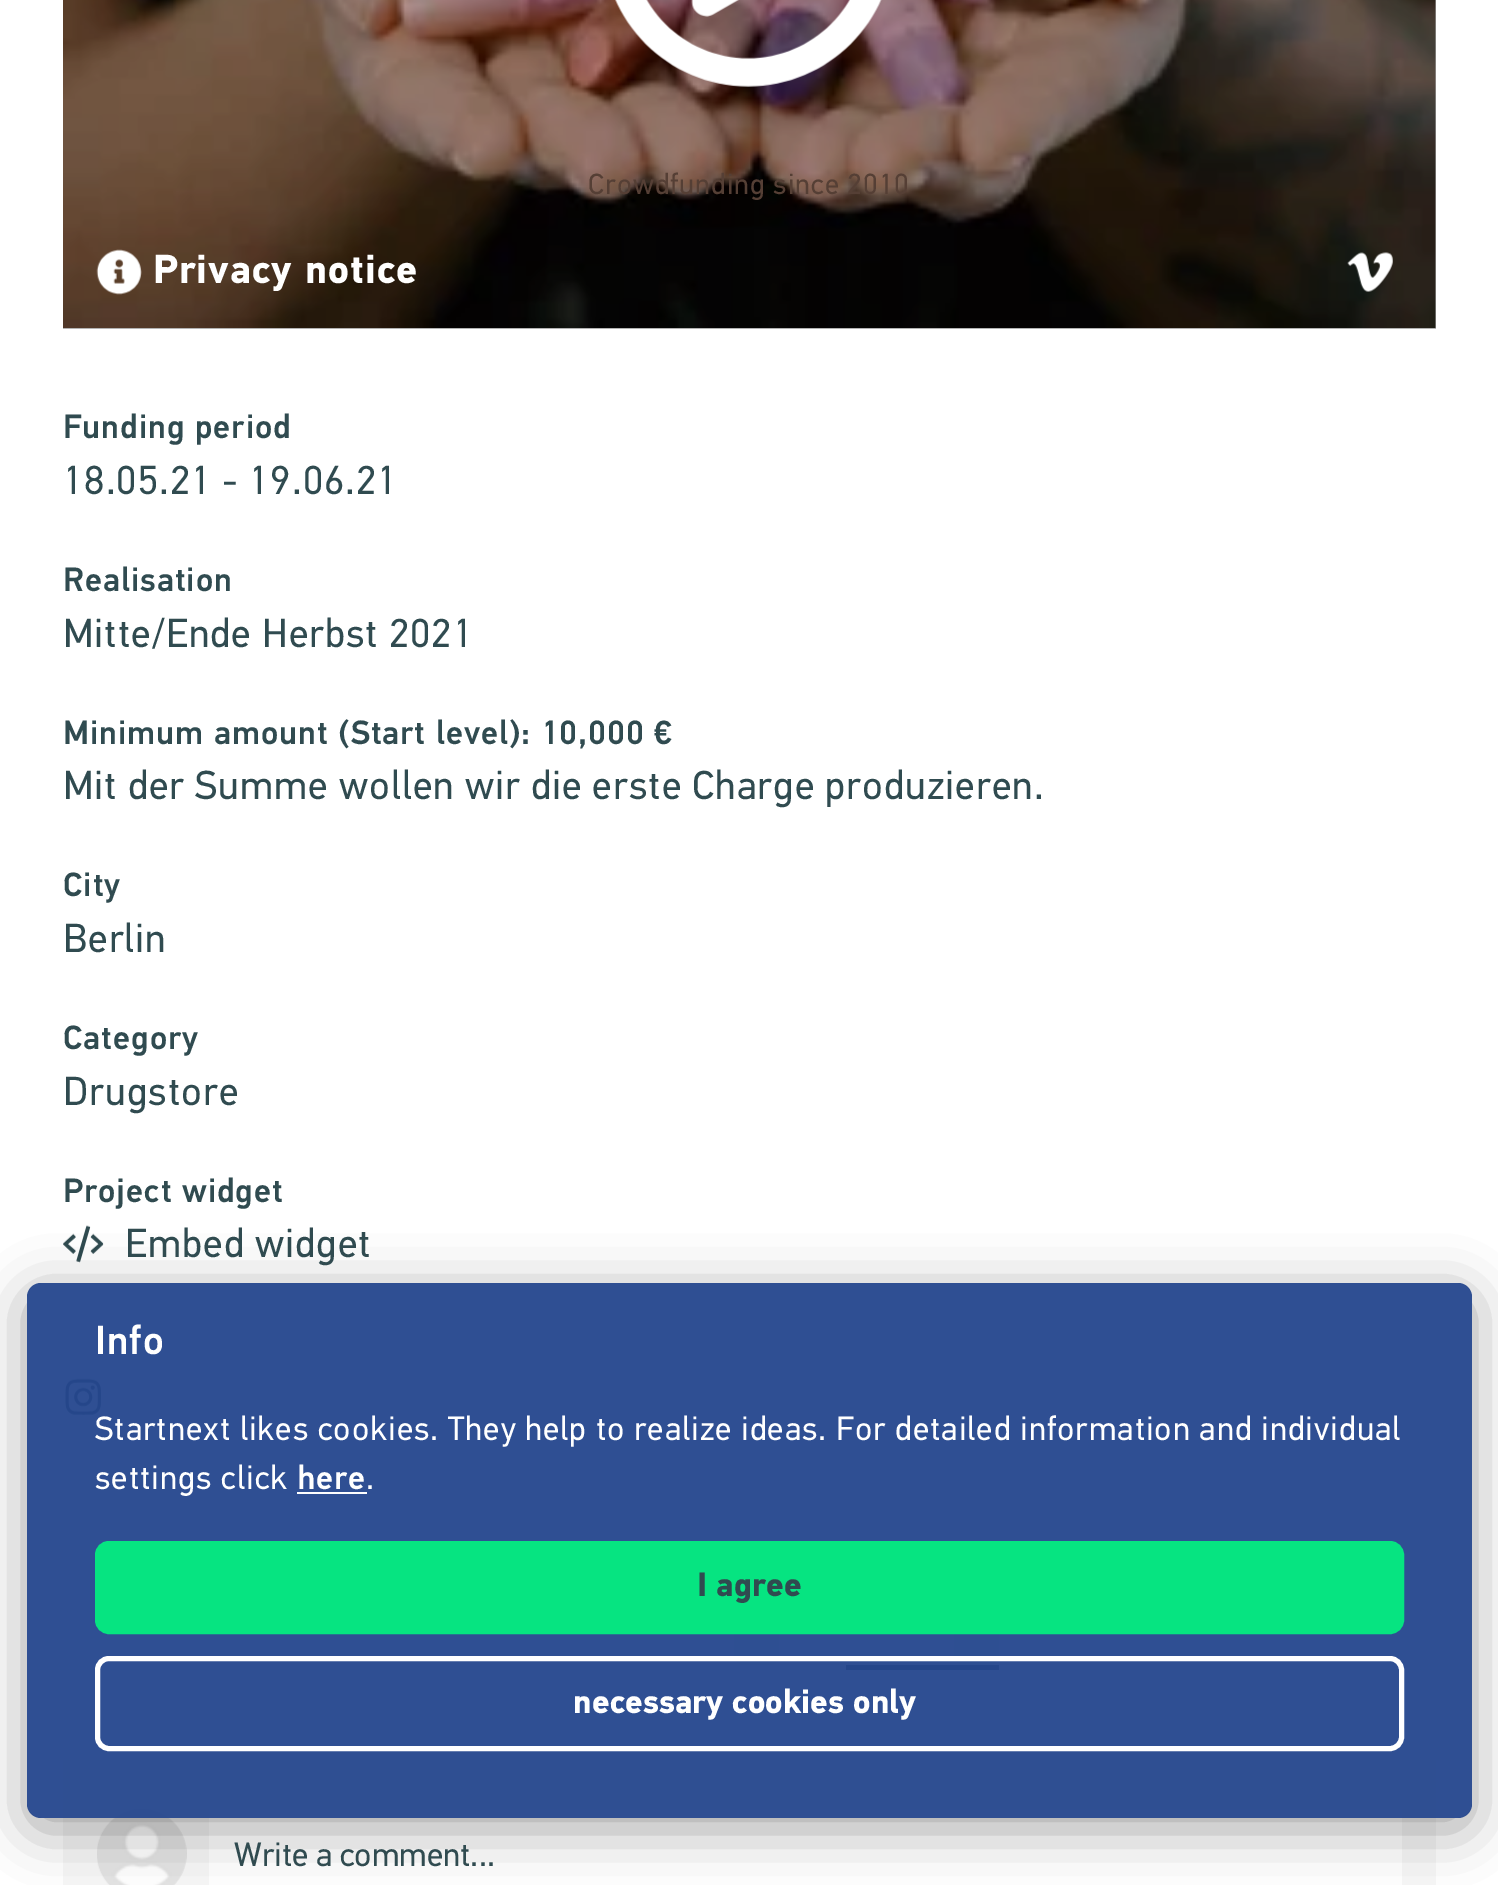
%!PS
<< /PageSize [1498 1885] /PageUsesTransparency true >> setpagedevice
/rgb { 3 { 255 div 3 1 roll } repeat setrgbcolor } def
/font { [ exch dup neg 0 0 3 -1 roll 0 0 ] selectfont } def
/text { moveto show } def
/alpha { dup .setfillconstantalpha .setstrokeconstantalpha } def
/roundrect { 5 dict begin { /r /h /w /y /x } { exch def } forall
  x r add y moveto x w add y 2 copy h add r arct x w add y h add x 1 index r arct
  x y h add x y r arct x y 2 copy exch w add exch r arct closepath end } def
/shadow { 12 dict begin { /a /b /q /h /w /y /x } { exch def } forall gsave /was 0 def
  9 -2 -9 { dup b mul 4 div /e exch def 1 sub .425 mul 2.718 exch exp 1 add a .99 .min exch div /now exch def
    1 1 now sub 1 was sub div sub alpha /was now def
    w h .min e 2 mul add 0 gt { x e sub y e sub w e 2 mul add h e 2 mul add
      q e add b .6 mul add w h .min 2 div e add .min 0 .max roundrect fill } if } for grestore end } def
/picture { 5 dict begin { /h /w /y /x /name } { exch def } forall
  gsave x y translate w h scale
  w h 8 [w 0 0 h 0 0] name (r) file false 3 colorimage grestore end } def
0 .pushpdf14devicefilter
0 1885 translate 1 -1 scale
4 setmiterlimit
255 255 255 rgb
0 0 1498 1885 rectfill
179 179 179 rgb
63 0 1373 329 rectfill
(img_01.rgb) 63 0 1373 328 picture
(img_02.rgb) 615 0 267 87 picture
(img_03.rgb) 96 249 46 46 picture
(img_04.rgb) 1347 252 46 40 picture
(img_05.rgb) 63 1225 41 38 picture
(img_06.rgb) 65 1378 36 37 picture
241 241 241 rgb
734 1607 45 58 9 roundrect fill
954 1607 45 58 9 roundrect fill
48 75 80 rgb
846 1665 153 5 rectfill
247 247 247 rgb
63 1760 1373 125 rectfill
(img_07.rgb) 97 1809 90 76 picture
255 255 255 rgb
209 1809 1193 76 rectfill
gsave
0 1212 moveto 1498 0 rlineto 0 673 rlineto -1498 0 rlineto closepath 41 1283 moveto 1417 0 rlineto 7.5 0 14 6.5 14 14 rcurveto 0 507 rlineto 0 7.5 -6.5 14 -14 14 rcurveto -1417 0 rlineto -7.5 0 -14 -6.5 -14 -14 rcurveto 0 -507 rlineto 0 -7.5 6.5 -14 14 -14 rcurveto closepath eoclip newpath
0 0 0 rgb
27 1294 1445 535 14 27 0.35 shadow
grestore
0.95 alpha
36 70 141 rgb
27 1283 1445 535 14 roundrect fill
1 alpha
255 255 255 rgb
297 1492 70 2 rectfill
6 228 129 rgb
97.5 1543.5 1304 88 11.5 roundrect gsave fill grestore
5 setlinewidth
stroke
255 255 255 rgb
97.5 1658.5 1304 90 11.5 roundrect stroke
/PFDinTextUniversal-Regular 29.25 font
85 63 53 rgb
588 194 moveto 1 0 (Crowdfunding since 2010) ashow
/PFDinTextUniversal-Bold 40.5 font
255 255 255 rgb
153 283 moveto 1 0 (Privacy notice) ashow
/PFDinTextUniversal-Medium 33.75 font
48 75 80 rgb
63 438 moveto 1 0 (Funding period) ashow
/PFDinTextUniversal-Regular 40.5 font
63 494 moveto 1 0 (18.05.21 - 19.06.21) ashow
/PFDinTextUniversal-Medium 33.75 font
63 591 moveto 1 0 (Realisation) ashow
/PFDinTextUniversal-Regular 40.5 font
63 647 moveto 1 0 (Mitte/Ende Herbst 2021) ashow
/PFDinTextUniversal-Medium 33.75 font
63 744 moveto 1 0 (Minimum amount \(Start level\): 10,000 €) ashow
/PFDinTextUniversal-Regular 40.5 font
63 799 moveto 1 0 (Mit der Summe wollen wir die erste Charge produzieren.) ashow
/PFDinTextUniversal-Medium 33.75 font
63 896 moveto 1 0 (City) ashow
/PFDinTextUniversal-Regular 40.5 font
63 952 moveto 1 0 (Berlin) ashow
/PFDinTextUniversal-Medium 33.75 font
63 1049 moveto 1 0 (Category) ashow
/PFDinTextUniversal-Regular 40.5 font
63 1105 moveto 1 0 (Drugstore) ashow
/PFDinTextUniversal-Medium 33.75 font
63 1202 moveto 1 0 (Project widget) ashow
/PFDinTextUniversal-Regular 40.5 font
125 1257 moveto 1 0 (Embed widget) ashow
/PFDinTextUniversal-Regular 33.75 font
(Write a comment...) 234 1866 text
/PFDinTextUniversal-Medium 40.5 font
255 255 255 rgb
95 1354 moveto 1 0 (Info) ashow
/PFDinTextUniversal-Regular 33.75 font
95 1440 moveto 1 0 (Startnext likes cookies. They help to realize ideas. For detailed information and individual) ashow
95 1489 moveto 1 0 (settings click) ashow
/PFDinTextUniversal-Medium 33.75 font
297 1489 moveto 1 0 (here) ashow
/PFDinTextUniversal-Regular 33.75 font
366 1489 moveto 1 0 (.) ashow
/PFDinTextUniversal-Bold 33.75 font
48 75 80 rgb
(I agree) 697 1596 text
255 255 255 rgb
(necessary cookies only) 573 1713 text
.poppdf14devicefilter showpage
